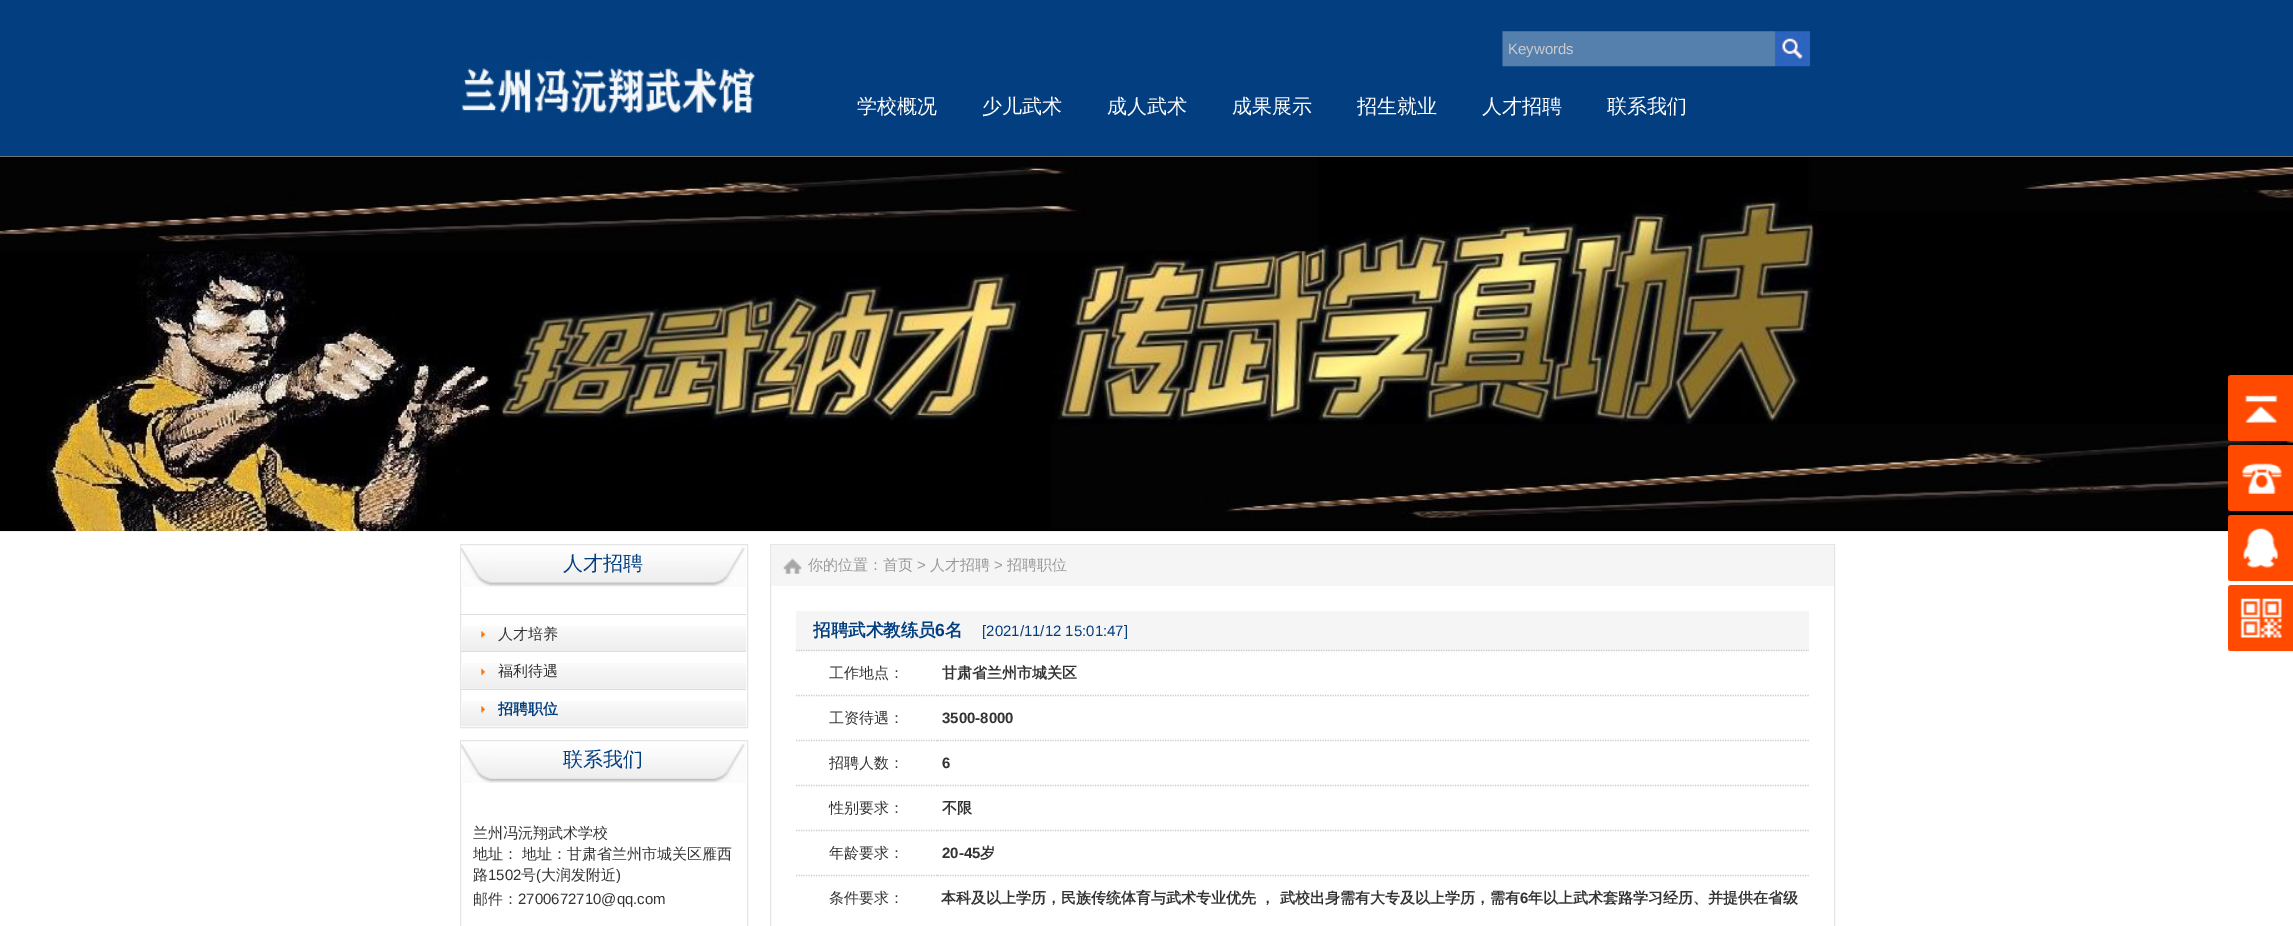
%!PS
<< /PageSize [2293 926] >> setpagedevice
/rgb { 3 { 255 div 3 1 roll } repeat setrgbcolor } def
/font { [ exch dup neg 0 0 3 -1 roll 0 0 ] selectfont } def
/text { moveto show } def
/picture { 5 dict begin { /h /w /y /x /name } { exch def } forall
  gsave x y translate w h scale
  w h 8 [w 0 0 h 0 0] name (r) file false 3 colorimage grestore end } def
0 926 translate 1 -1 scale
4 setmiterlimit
255 255 255 rgb
0 0 2293 926 rectfill
3 63 128 rgb
0 0 2293 156 rectfill
(img_01.rgb) 460 61 295 60 picture
(img_02.rgb) 1502 31 308 36 picture
(img_07.rgb) 0 156 2293 376 picture
(img_03.rgb) 2228 375 65 67 picture
(img_04.rgb) 2228 445 65 67 picture
(img_05.rgb) 2228 515 65 67 picture
(img_06.rgb) 2228 585 65 67 picture
229 229 229 rgb
460.5 544.5 287 183 rectstroke
(img_08.rgb) 461 546 285 41 picture
(img_09.rgb) 461 626 286 26 picture
(img_10.rgb) 481 631 5 7 picture
221 221 221 rgb
461 614 285 1 rectfill
(img_11.rgb) 461 663 286 26 picture
(img_12.rgb) 481 668 5 8 picture
461 651 285 1 rectfill
(img_09.rgb) 461 701 286 26 picture
(img_10.rgb) 481 706 5 7 picture
461 689 285 1 rectfill
229 229 229 rgb
460.5 740.5 287 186 rectstroke
(img_13.rgb) 461 742 285 41 picture
770.5 544.5 1064 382 rectstroke
245 245 245 rgb
771 545 1063 41 rectfill
(img_14.rgb) 783 558 19 16 picture
796 611 1013 40 rectfill
204 204 204 rgb
1.2 setlinewidth
[1.25 1.25] 0 setdash
796 650.5 moveto 1013 0 rlineto stroke
796 695.5 moveto 141.5 0 rlineto stroke
937.5 695.5 moveto 871.5 0 rlineto stroke
796 740.5 moveto 141.5 0 rlineto stroke
937.5 740.5 moveto 871.5 0 rlineto stroke
796 785.5 moveto 141.5 0 rlineto stroke
937.5 785.5 moveto 871.5 0 rlineto stroke
796 830.5 moveto 141.5 0 rlineto stroke
937.5 830.5 moveto 871.5 0 rlineto stroke
796 875.5 moveto 141.5 0 rlineto stroke
937.5 875.5 moveto 871.5 0 rlineto stroke
/LiberationSans-Regular 15 font
(Keywords) 1508 54 text
/WenQuanYiZenHei-Medium 20 font
255 255 255 rgb
(学校概况) 857 113 text
(少儿武术) 982 113 text
(成人武术) 1107 113 text
(成果展示) 1232 113 text
(招生就业) 1357 113 text
(人才招聘) 1482 113 text
(联系我们) 1607 113 text
3 63 128 rgb
(人才招聘) 563 570 text
/WenQuanYiZenHei-Medium 15 font
51 51 51 rgb
(人才培养) 498 639 text
(福利待遇) 498 676 text
/WenQuanYiZenHei-Bold 15 font
3 63 128 rgb
(招聘职位) 498 714 text
/WenQuanYiZenHei-Medium 20 font
(联系我们) 563 766 text
/WenQuanYiZenHei-Medium 15 font
51 51 51 rgb
(兰州冯沅翔武术学校) 473 838 text
(地址： 地址：甘肃省兰州市城关区雁西) 473 859 text
(路) 473 880 text
/LiberationSans-Regular 15 font
(1502) 488 880 text
/WenQuanYiZenHei-Medium 15 font
(号) 521 880 text
/LiberationSans-Regular 15 font
(\() 536 880 text
/WenQuanYiZenHei-Medium 15 font
(大润发附近) 541 880 text
/LiberationSans-Regular 15 font
(\)) 616 880 text
/WenQuanYiZenHei-Medium 15 font
(邮件：) 473 904 text
/LiberationSans-Regular 15 font
(2700672710@qq.com) 518 904 text
/WenQuanYiZenHei-Medium 15 font
153 153 153 rgb
(你的位置：首页) 808 570 text
/LiberationSans-Regular 15 font
(>) 917 570 text
/WenQuanYiZenHei-Medium 15 font
(人才招聘) 930 570 text
/LiberationSans-Regular 15 font
(>) 994 570 text
/WenQuanYiZenHei-Medium 15 font
(招聘职位) 1007 570 text
/WenQuanYiZenHei-Bold 17.5 font
3 63 128 rgb
(招聘武术教练员) 813 636 text
/LiberationSans-Bold 17.5 font
(6) 935 636 text
/WenQuanYiZenHei-Bold 17.5 font
(名) 945 636 text
/LiberationSans-Regular 15 font
([2021/11/12 15:01:47]) 982 636 text
/WenQuanYiZenHei-Medium 15 font
51 51 51 rgb
(工作地点：) 829 678 text
/WenQuanYiZenHei-Bold 15 font
(甘肃省兰州市城关区) 942 678 text
/WenQuanYiZenHei-Medium 15 font
(工资待遇：) 829 723 text
/LiberationSans-Bold 15 font
(3500-8000) 942 723 text
/WenQuanYiZenHei-Medium 15 font
(招聘人数：) 829 768 text
/LiberationSans-Bold 15 font
(6) 942 768 text
/WenQuanYiZenHei-Medium 15 font
(性别要求：) 829 813 text
/WenQuanYiZenHei-Bold 15 font
(不限) 942 813 text
/WenQuanYiZenHei-Medium 15 font
(年龄要求：) 829 858 text
/LiberationSans-Bold 15 font
(20-45) 942 858 text
/WenQuanYiZenHei-Bold 15 font
(岁) 980 858 text
/WenQuanYiZenHei-Medium 15 font
(条件要求：) 829 903 text
/WenQuanYiZenHei-Bold 15 font
(本科及以上学历，民族传统体育与武术专业优先 ， 武校出身需有大专及以上学历，需有) 941 903 text
/LiberationSans-Bold 15 font
(6) 1520 903 text
/WenQuanYiZenHei-Bold 15 font
(年以上武术套路学习经历、并提供在省级) 1528 903 text
showpage
